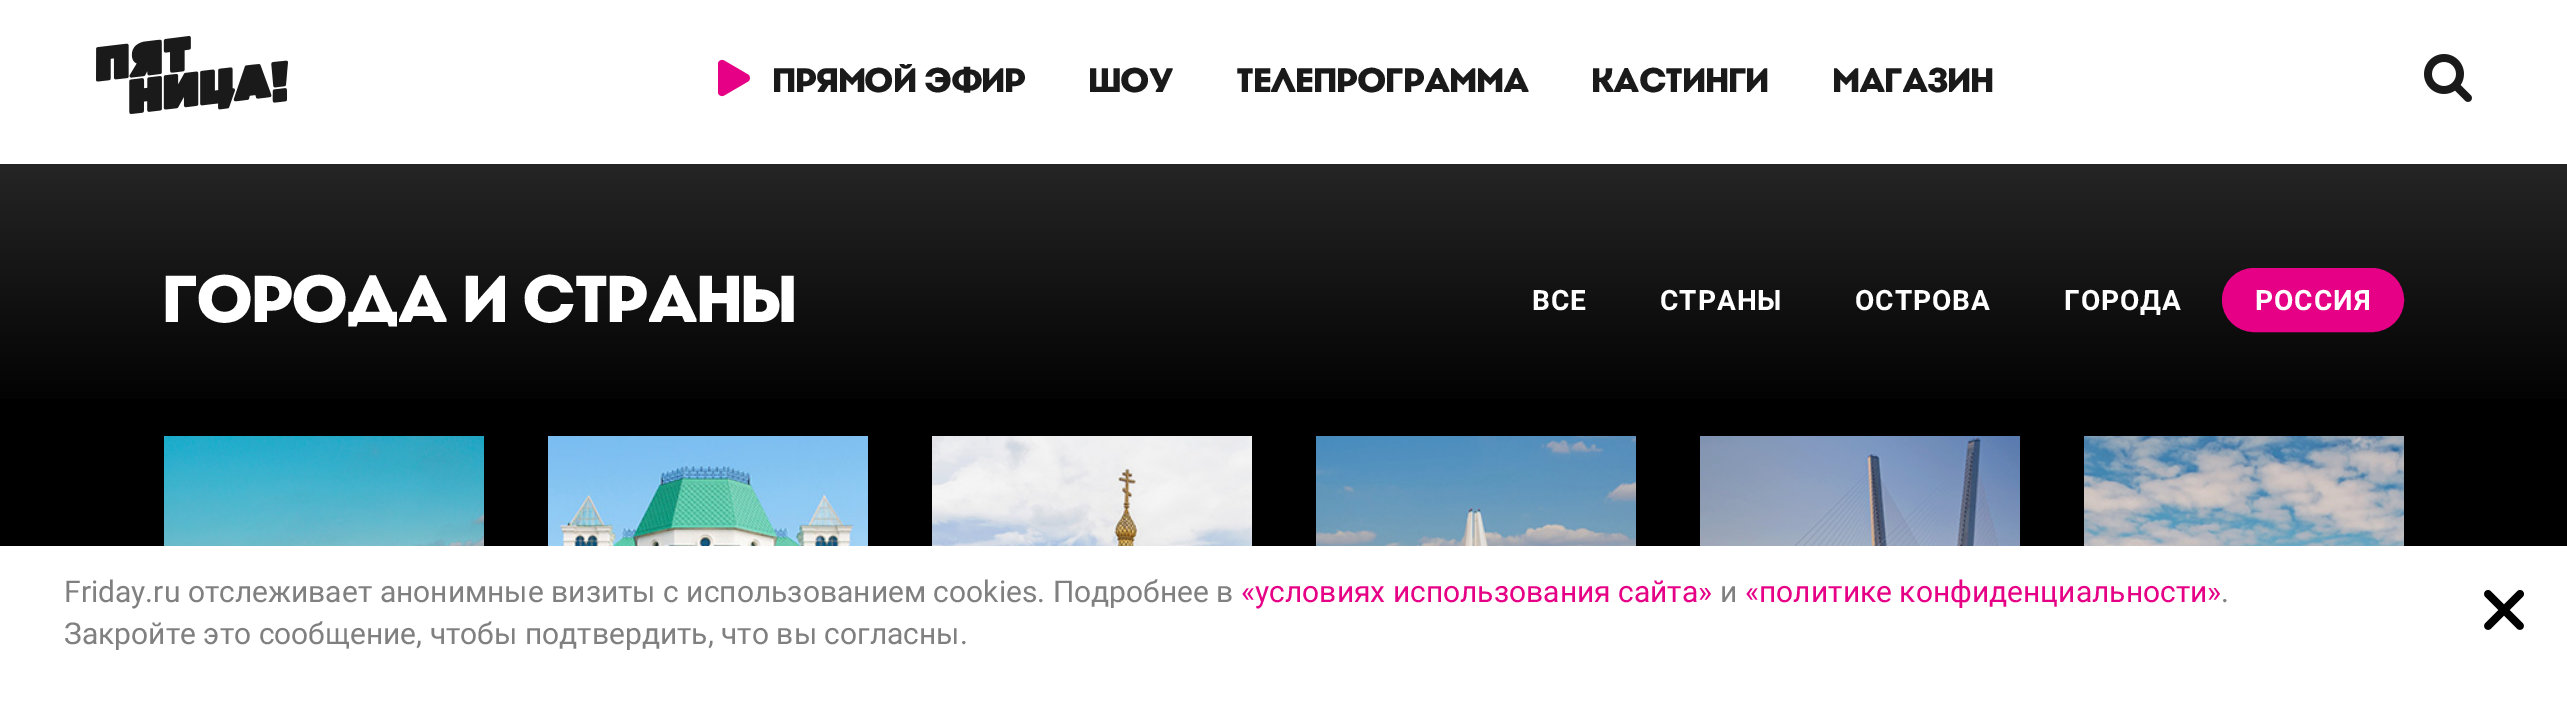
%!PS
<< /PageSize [2567 716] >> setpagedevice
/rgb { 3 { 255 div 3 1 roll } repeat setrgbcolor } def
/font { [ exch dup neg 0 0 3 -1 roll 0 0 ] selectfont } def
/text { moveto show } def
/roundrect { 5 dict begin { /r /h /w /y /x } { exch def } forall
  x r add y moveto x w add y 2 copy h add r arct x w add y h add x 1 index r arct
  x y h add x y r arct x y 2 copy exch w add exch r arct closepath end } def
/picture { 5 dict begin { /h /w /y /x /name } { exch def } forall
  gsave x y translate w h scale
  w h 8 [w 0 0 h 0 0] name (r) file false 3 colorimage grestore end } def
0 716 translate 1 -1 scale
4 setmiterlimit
0 0 0 rgb
0 0 2567 716 rectfill
255 255 255 rgb
0 0 2567 164 rectfill
(img_01.rgb) 96 36 192 78 picture
230 0 134 rgb
748 74.5 moveto 2.5 1.5 2.5 5.5 0 7 rcurveto -24 14 rlineto -2.5 1.5 -6 -0.5 -6 -3.5 rcurveto 0 -28 rlineto 0 -3 3.5 -5 6 -3.5 rcurveto closepath fill
(img_02.rgb) 2424 54 48 48 picture
gsave 0 164 moveto 2567 0 rlineto 0 235 rlineto -2567 0 rlineto closepath clip newpath
<< /ShadingType 2 /ColorSpace /DeviceRGB /Coords [1284 160 1284 416] /Extend [true true] /Function << /FunctionType 2 /Domain [0 1] /C0 [0.149 0.149 0.149] /C1 [0 0 0] /N 1 >> >> shfill grestore
2224 270 178 60 30 roundrect gsave fill grestore
4 setlinewidth
stroke
(img_03.rgb) 164 436 320 110 picture
(img_04.rgb) 548 436 320 110 picture
(img_05.rgb) 932 436 320 110 picture
(img_06.rgb) 1316 436 320 110 picture
(img_07.rgb) 1700 436 320 110 picture
(img_08.rgb) 2084 436 320 110 picture
255 255 255 rgb
0 546 2567 170 rectfill
(img_09.rgb) 2484 590 40 40 picture
/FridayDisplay-Bold 34 font
26 26 26 rgb
773 92 moveto 0.75 0 (ПРЯМОЙ ЭФИР) ashow
1089 92 moveto 0.75 0 (ШОУ) ashow
1237 92 moveto 0.75 0 (ТЕЛЕПРОГРАММА) ashow
1592 92 moveto 0.75 0 (КАСТИНГИ) ashow
1833 92 moveto 0.75 0 (МАГАЗИН) ashow
/FridayDisplay-Bold 66 font
255 255 255 rgb
164 322 moveto 1.3 0 (ГОРОДА И СТРАНЫ) ashow
/Roboto-Bold 28 font
1532 310 moveto 1 0 (ВСЕ) ashow
1660 310 moveto 1 0 (СТРАНЫ) ashow
1855 310 moveto 1 0 (ОСТРОВА) ashow
2064 310 moveto 1 0 (ГОРОДА) ashow
2255 310 moveto 1 0 (РОССИЯ) ashow
/Roboto-Regular 30 font
128 128 128 rgb
(Friday.ru отслеживает анонимные визиты с использованием cookies. Подробнее в) 64 602 text
230 0 134 rgb
(«условиях использования сайта») 1241 602 text
128 128 128 rgb
(и) 1720 602 text
230 0 134 rgb
(«политике конфиденциальности») 1745 602 text
128 128 128 rgb
(.) 2221 602 text
(Закройте это сообщение, чтобы подтвердить, что вы согласны.) 64 644 text
showpage
